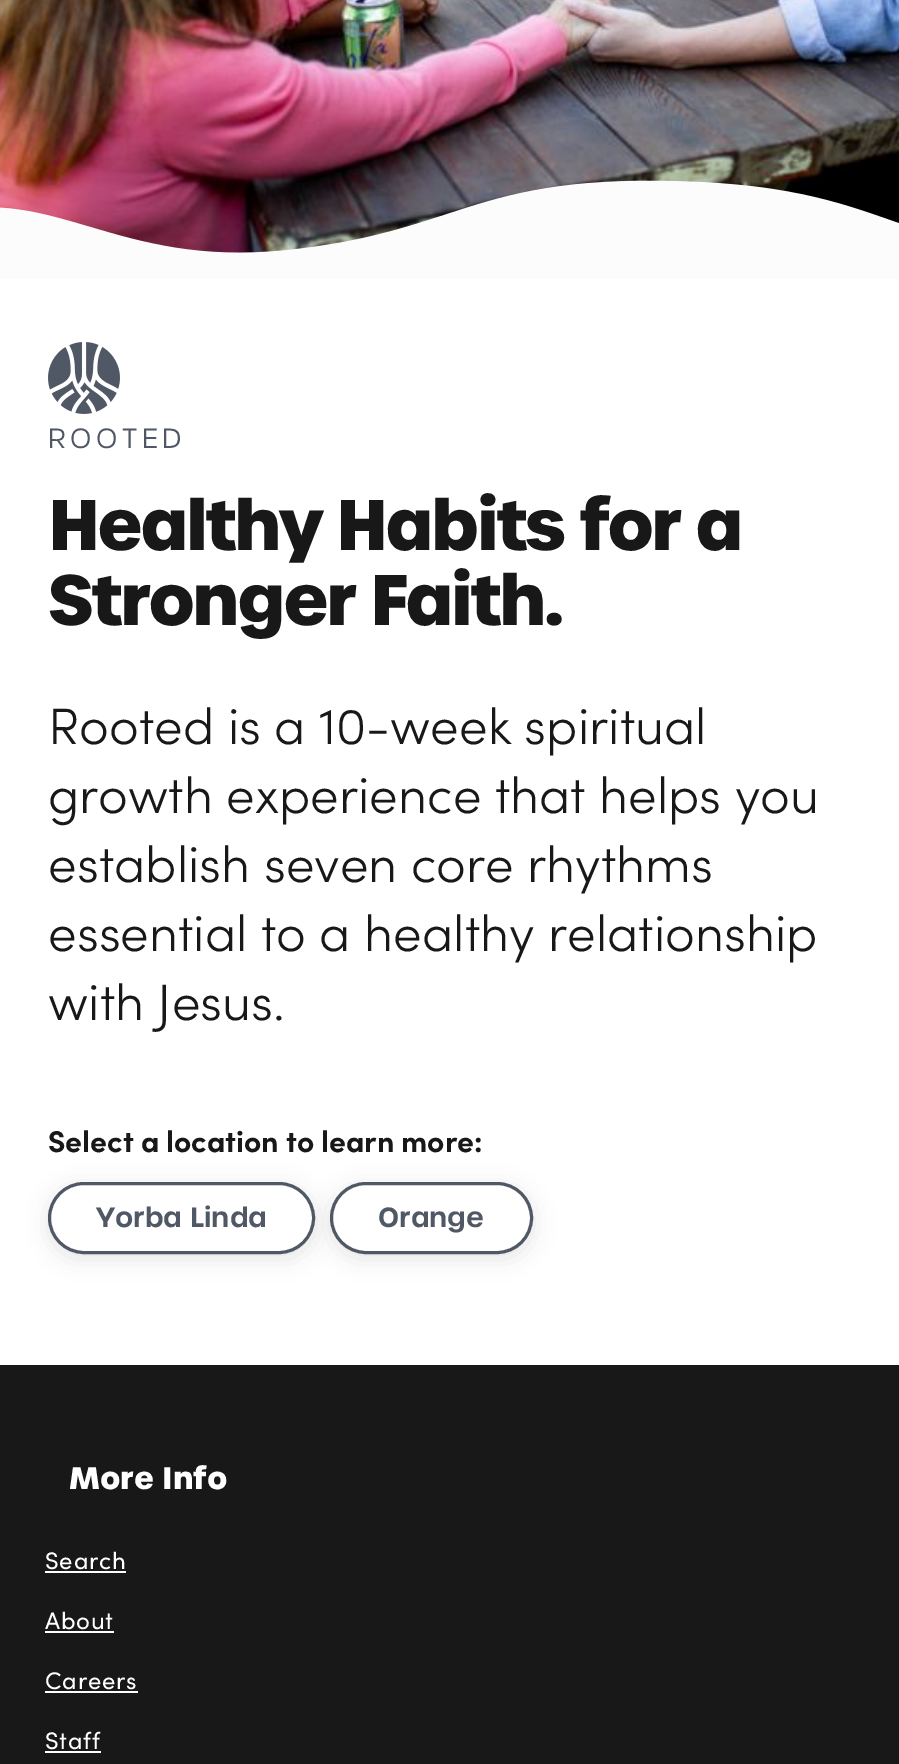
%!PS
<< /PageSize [899 1764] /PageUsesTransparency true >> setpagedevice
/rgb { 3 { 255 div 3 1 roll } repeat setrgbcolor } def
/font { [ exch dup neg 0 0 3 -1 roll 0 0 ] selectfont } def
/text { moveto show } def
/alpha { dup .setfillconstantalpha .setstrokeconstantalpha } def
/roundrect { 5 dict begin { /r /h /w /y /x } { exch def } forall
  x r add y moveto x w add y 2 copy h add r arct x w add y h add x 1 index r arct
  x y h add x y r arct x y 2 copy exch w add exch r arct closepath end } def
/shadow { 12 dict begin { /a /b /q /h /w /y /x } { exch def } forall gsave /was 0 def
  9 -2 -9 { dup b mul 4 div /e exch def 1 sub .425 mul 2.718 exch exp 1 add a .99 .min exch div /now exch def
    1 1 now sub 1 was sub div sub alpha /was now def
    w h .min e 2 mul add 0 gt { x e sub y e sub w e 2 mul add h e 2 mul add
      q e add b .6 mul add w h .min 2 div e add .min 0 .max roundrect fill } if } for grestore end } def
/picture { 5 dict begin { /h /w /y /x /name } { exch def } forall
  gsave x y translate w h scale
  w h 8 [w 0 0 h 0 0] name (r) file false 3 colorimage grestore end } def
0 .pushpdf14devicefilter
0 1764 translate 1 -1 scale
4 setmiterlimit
255 255 255 rgb
0 0 899 1764 rectfill
(img_01.rgb) 0 0 899 253 picture
(img_02.rgb) 0 180 899 99 picture
(img_03.rgb) 48 342 72 72 picture
gsave
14 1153 moveto 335 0 rlineto 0 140 rlineto -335 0 rlineto closepath 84 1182 moveto 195 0 rlineto 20 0 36 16 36 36 rcurveto 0 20 -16 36 -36 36 rcurveto -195 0 rlineto -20 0 -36 -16 -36 -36 rcurveto 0 -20 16 -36 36 -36 rcurveto closepath eoclip newpath
0 0 0 rgb
48 1187 267 72 36 11 0.1 shadow
grestore
80 88 102 rgb
3 setlinewidth
49.5 1183.5 264 69 34.5 roundrect stroke
gsave
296 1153 moveto 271 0 rlineto 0 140 rlineto -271 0 rlineto closepath 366 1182 moveto 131 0 rlineto 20 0 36 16 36 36 rcurveto 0 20 -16 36 -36 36 rcurveto -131 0 rlineto -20 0 -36 -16 -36 -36 rcurveto 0 -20 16 -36 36 -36 rcurveto closepath eoclip newpath
0 0 0 rgb
330 1187 203 72 36 11 0.1 shadow
grestore
331.5 1183.5 200 69 34.5 roundrect stroke
24 24 24 rgb
0 1365 899 399 rectfill
255 255 255 rgb
45 1571 81 2 rectfill
45 1631 69 2 rectfill
45 1691 93 2 rectfill
45 1751 56 2 rectfill
/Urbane-Light 27 font
80 88 102 rgb
48 448 moveto 4.5 0 (ROOTED) ashow
/Urbane-Bold 69 font
24 24 24 rgb
48 550 moveto -3 0 (Healthy Habits for a) ashow
48 625 moveto -3 0 (Stronger Faith.) ashow
/Sofia-Light 51 font
(Rooted is a 10-week spiritual) 48 744 text
(growth experience that helps you) 48 813 text
(establish seven core rhythms) 48 882 text
(essential to a healthy relationship) 48 951 text
(with Jesus.) 48 1020 text
/Sofia-Bold 30 font
(Select a location to learn more:) 48 1152 text
/Urbane-SemiBold 27 font
80 88 102 rgb
(Yorba Linda) 96 1227 text
(Orange) 378 1227 text
/Urbane-Bold 30 font
255 255 255 rgb
(More Info) 69 1489 text
/Sofia-Regular 24 font
45 1569 moveto 0.75 0 (Search) ashow
45 1629 moveto 0.75 0 (About) ashow
45 1689 moveto 0.75 0 (Careers) ashow
45 1749 moveto 0.75 0 (Staff) ashow
.poppdf14devicefilter showpage
